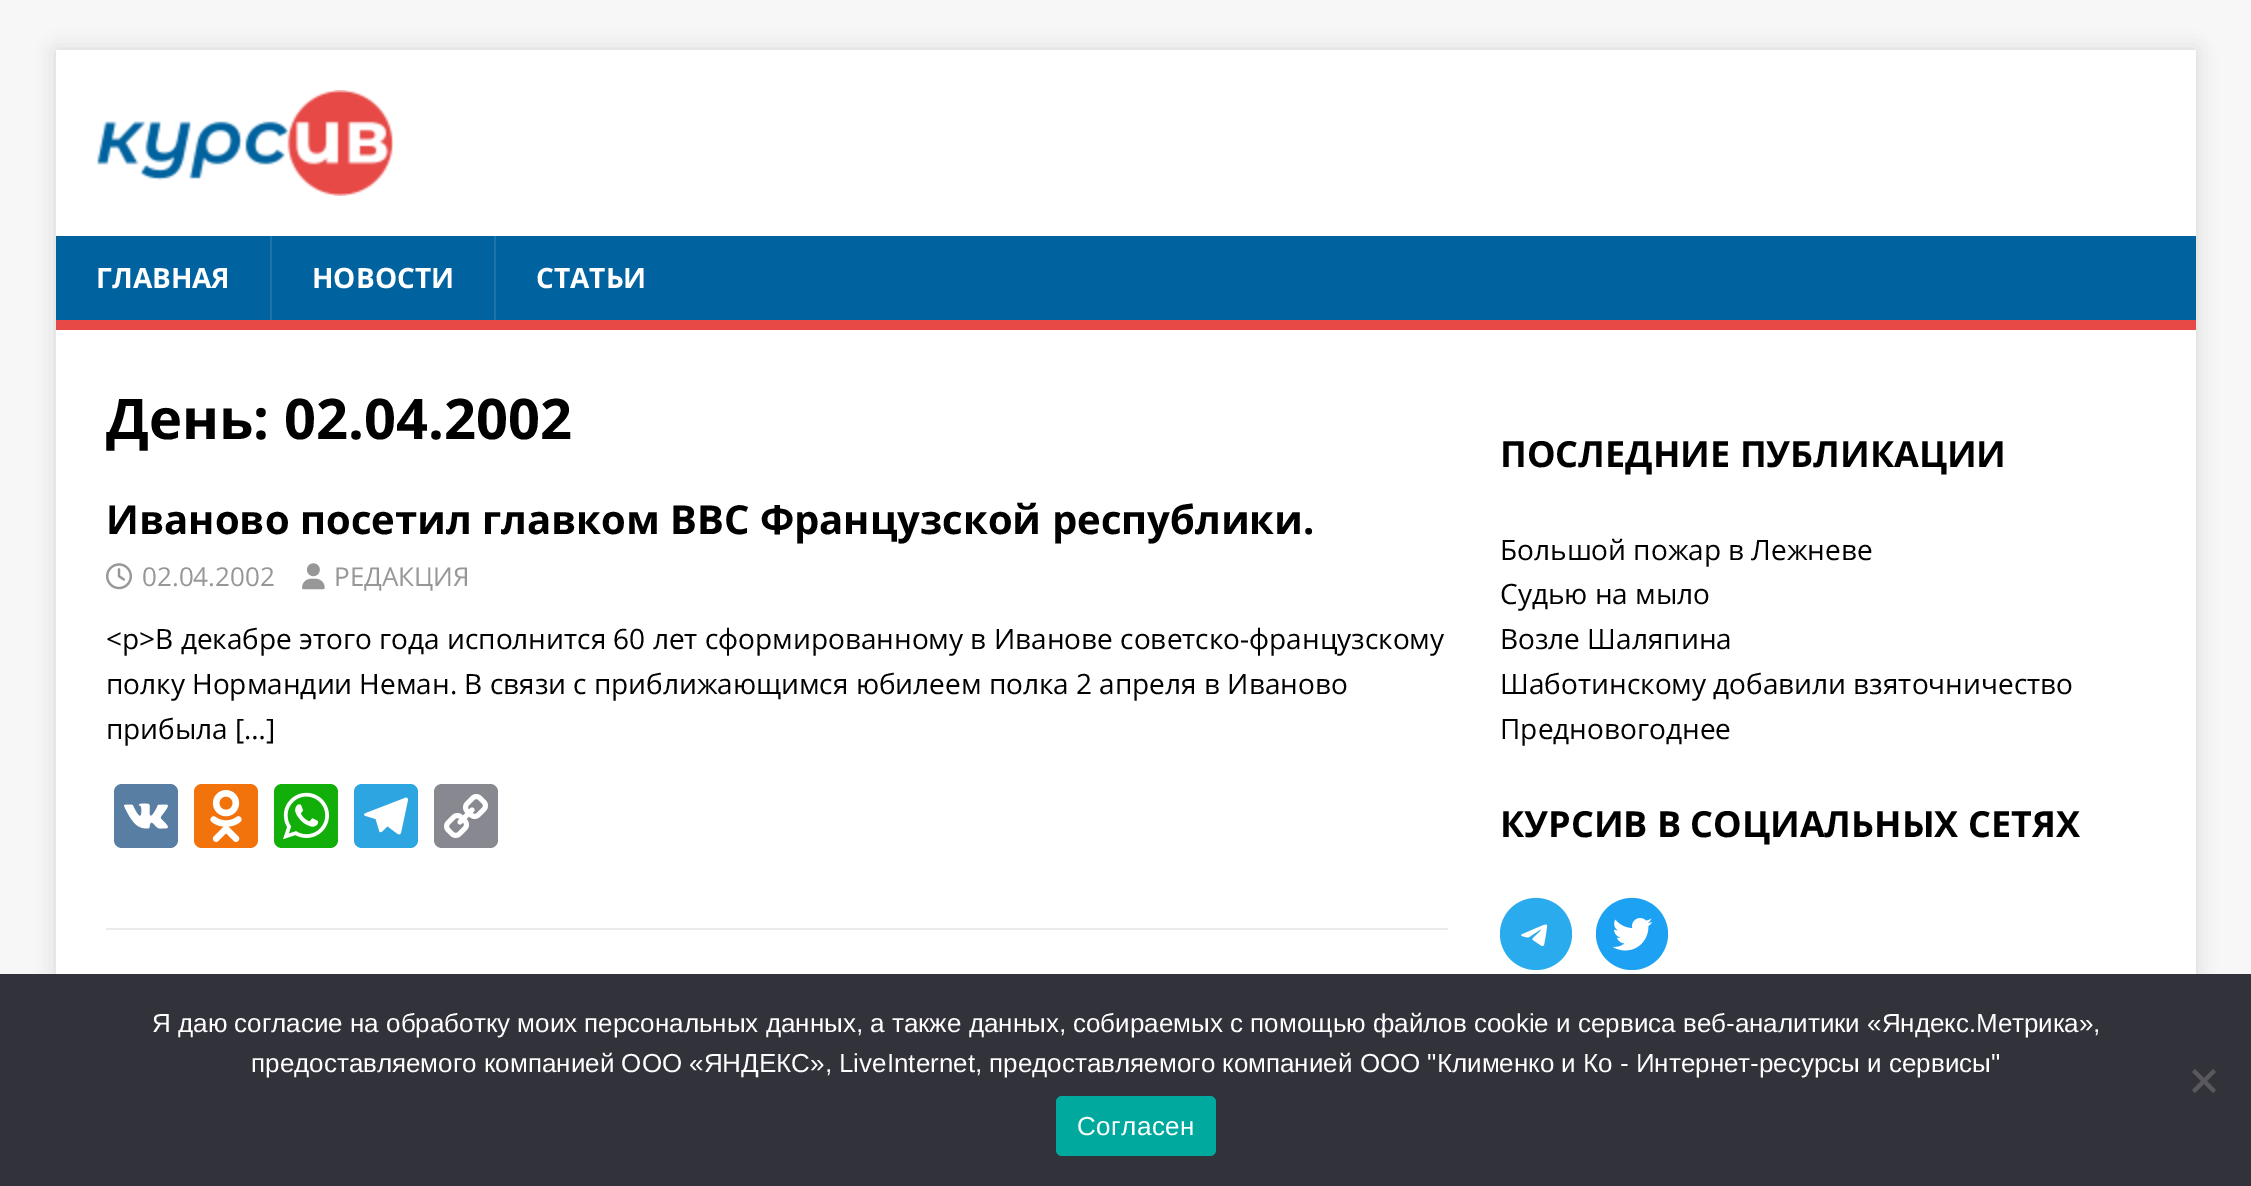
%!PS
<< /PageSize [2251 1186] /PageUsesTransparency true >> setpagedevice
/rgb { 3 { 255 div 3 1 roll } repeat setrgbcolor } def
/font { [ exch dup neg 0 0 3 -1 roll 0 0 ] selectfont } def
/text { moveto show } def
/alpha { dup .setfillconstantalpha .setstrokeconstantalpha } def
/circle { newpath 0 360 arc closepath } def
/roundrect { 5 dict begin { /r /h /w /y /x } { exch def } forall
  x r add y moveto x w add y 2 copy h add r arct x w add y h add x 1 index r arct
  x y h add x y r arct x y 2 copy exch w add exch r arct closepath end } def
/shadow { 12 dict begin { /a /b /q /h /w /y /x } { exch def } forall gsave /was 0 def
  9 -2 -9 { dup b mul 4 div /e exch def 1 sub .425 mul 2.718 exch exp 1 add a .99 .min exch div /now exch def
    1 1 now sub 1 was sub div sub alpha /was now def
    w h .min e 2 mul add 0 gt { x e sub y e sub w e 2 mul add h e 2 mul add
      q e add b .6 mul add w h .min 2 div e add .min 0 .max roundrect fill } if } for grestore end } def
/picture { 5 dict begin { /h /w /y /x /name } { exch def } forall
  gsave x y translate w h scale
  w h 8 [w 0 0 h 0 0] name (r) file false 3 colorimage grestore end } def
0 .pushpdf14devicefilter
0 1186 translate 1 -1 scale
4 setmiterlimit
247 247 247 rgb
0 0 2251 1186 rectfill
50 50 50 rgb
56 50 2140 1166 0 10 0.17 shadow
255 255 255 rgb
56 50 2140 186 rectfill
(img_01.rgb) 97 90 297 106 picture
0 99 159 rgb
56 236 2140 84 rectfill
230 73 70 rgb
56 320 2140 10 rectfill
26 115 169 rgb
270 236 2 84 rectfill
494 236 2 84 rectfill
255 255 255 rgb
56 330 2140 644 rectfill
235 235 235 rgb
106 928 1342 2 rectfill
(img_02.rgb) 106 563 26 27 picture
(img_03.rgb) 302 563 23 27 picture
88 126 163 rgb
114 784 64 64 8 roundrect fill
(img_04.rgb) 124 803 44 26 picture
242 114 12 rgb
194 784 64 64 8 roundrect fill
(img_05.rgb) 210 790 32 52 picture
18 175 10 rgb
274 784 64 64 8 roundrect fill
(img_06.rgb) 283 792 46 48 picture
44 165 224 rgb
354 784 64 64 8 roundrect fill
(img_07.rgb) 364 797 44 38 picture
136 137 144 rgb
434 784 64 64 8 roundrect fill
(img_08.rgb) 444 794 44 44 picture
42 171 238 rgb
1536 934 36 circle fill
(img_09.rgb) 1521 924 27 22 picture
29 161 242 rgb
1632 934 36 circle fill
(img_10.rgb) 1612 918 41 33 picture
50 50 58 rgb
0 974 2251 212 rectfill
89 89 93 rgb
2213 1069 moveto 3 3 rlineto -21 21 rlineto -3 -3 rlineto closepath fill
2192 1072 moveto 3 -3 rlineto 21 21 rlineto -3 3 rlineto closepath fill
0 169 157 rgb
1056 1096 160 60 6 roundrect fill
/OpenSans-Bold 28 font
255 255 255 rgb
(ГЛАВНАЯ) 96 288 text
(НОВОСТИ) 312 288 text
(СТАТЬИ) 536 288 text
/OpenSans-Bold 56 font
0 0 0 rgb
(День: 02.04.2002) 106 439 text
/OpenSans-Bold 40 font
(Иваново посетил главком ВВС Французской республики.) 106 534 text
/OpenSans-Regular 26 font
151 151 151 rgb
(02.04.2002) 142 586 text
(РЕДАКЦИЯ) 334 586 text
/OpenSans-Regular 28 font
0 0 0 rgb
(<p>В декабре этого года исполнится 60 лет сформированному в Иванове советско-французскому) 106 649 text
(полку Нормандии Неман. В связи с приближающимся юбилеем полка 2 апреля в Иваново) 106 694 text
(прибыла […]) 106 739 text
/OpenSans-Bold 36 font
(ПОСЛЕДНИЕ ПУБЛИКАЦИИ) 1500 467 text
/OpenSans-Regular 28 font
(Большой пожар в Лежневе) 1500 560 text
(Судью на мыло) 1500 604 text
(Возле Шаляпина) 1500 649 text
(Шаботинскому добавили взяточничество) 1500 694 text
(Предновогоднее) 1500 739 text
/OpenSans-Bold 36 font
(КУРСИВ В СОЦИАЛЬНЫХ СЕТЯХ) 1500 837 text
/LiberationSans-Regular 26 font
255 255 255 rgb
(Я даю согласие на обработку моих персональных данных, а также данных, собираемых с помощью файлов cookie и сервиса веб-аналитики «Яндекс.Метрика»,) 152 1032 text
(предоставляемого компанией ООО «ЯНДЕКС», LiveInternet, предоставляемого компанией ООО "Клименко и Ко - Интернет-ресурсы и сервисы") 251 1072 text
1077 1135 moveto 0.5 0 (Согласен) ashow
.poppdf14devicefilter showpage
